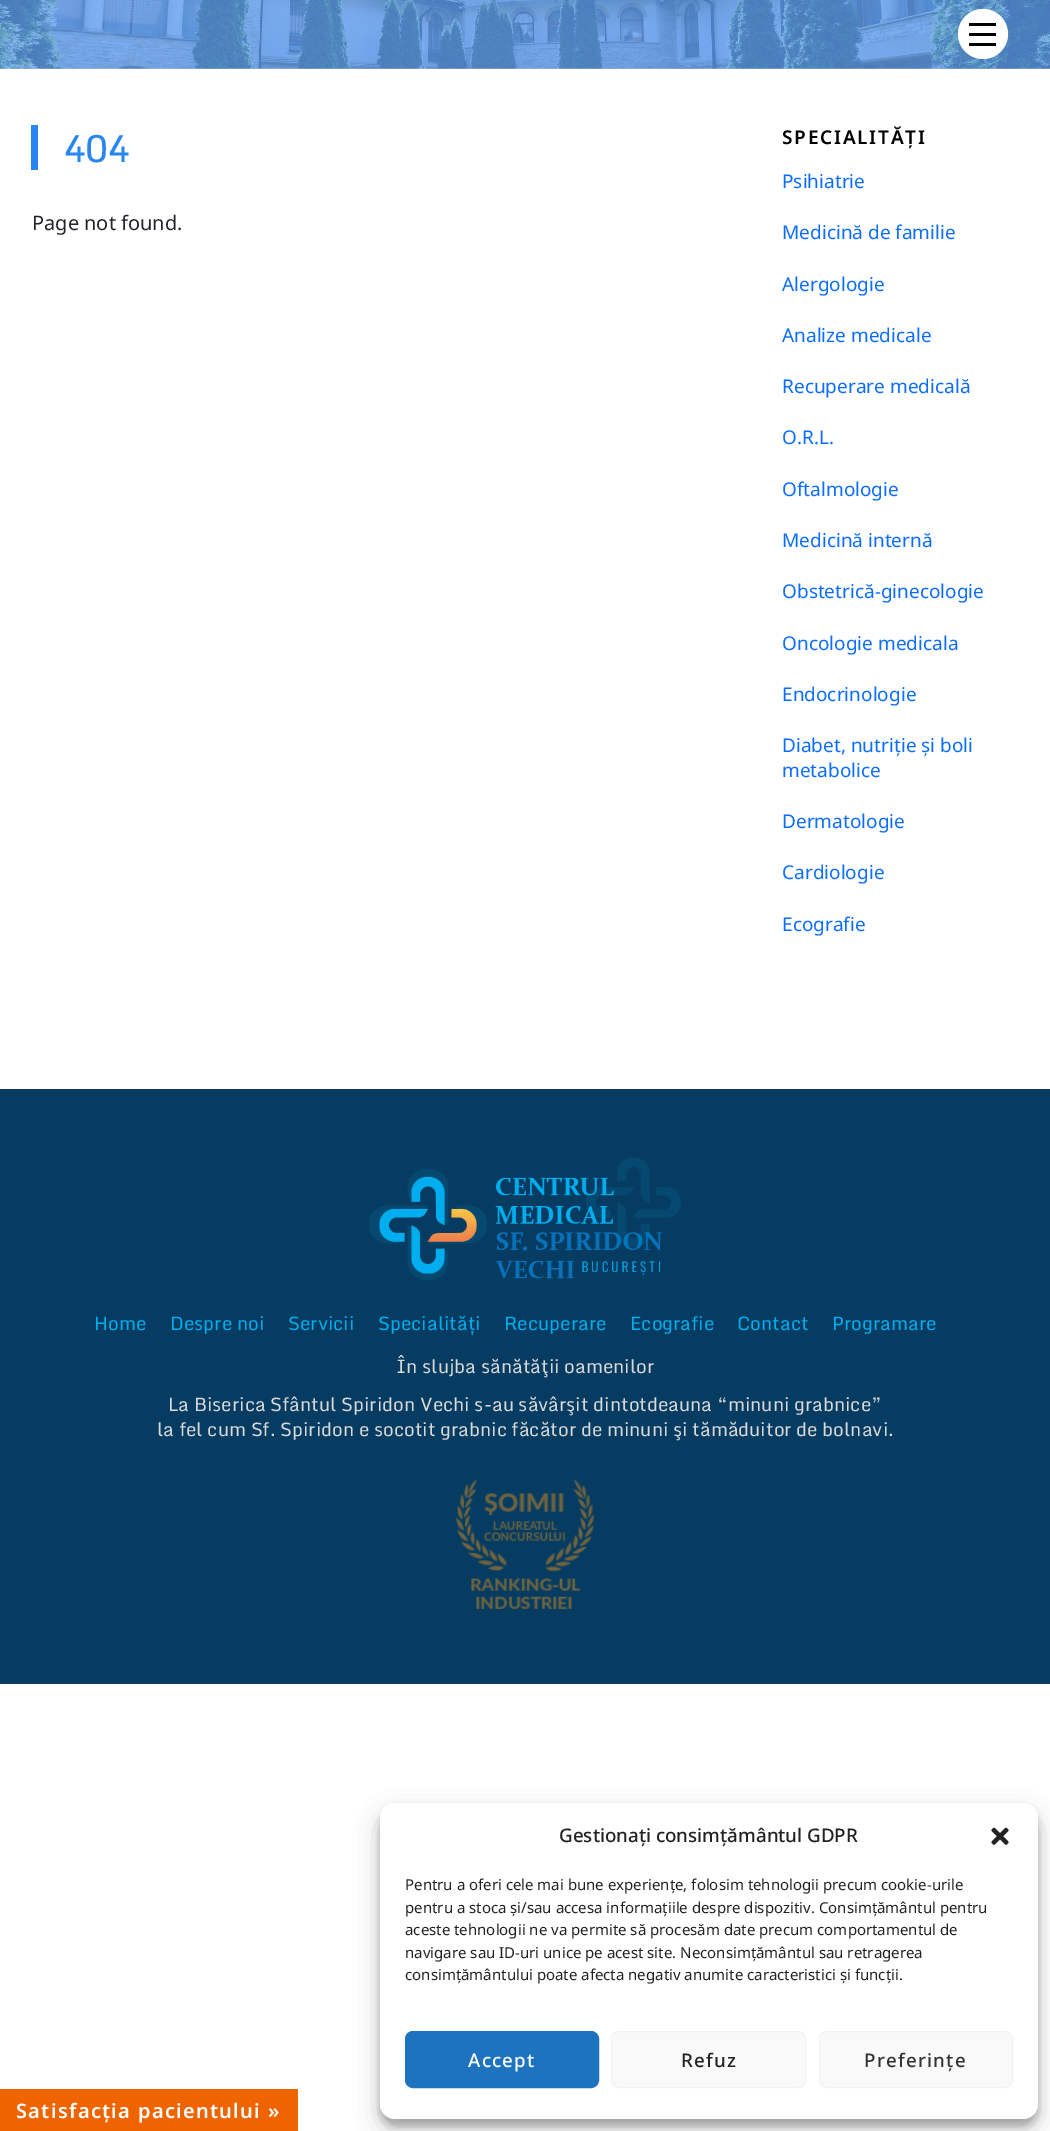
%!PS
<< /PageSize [1050 2131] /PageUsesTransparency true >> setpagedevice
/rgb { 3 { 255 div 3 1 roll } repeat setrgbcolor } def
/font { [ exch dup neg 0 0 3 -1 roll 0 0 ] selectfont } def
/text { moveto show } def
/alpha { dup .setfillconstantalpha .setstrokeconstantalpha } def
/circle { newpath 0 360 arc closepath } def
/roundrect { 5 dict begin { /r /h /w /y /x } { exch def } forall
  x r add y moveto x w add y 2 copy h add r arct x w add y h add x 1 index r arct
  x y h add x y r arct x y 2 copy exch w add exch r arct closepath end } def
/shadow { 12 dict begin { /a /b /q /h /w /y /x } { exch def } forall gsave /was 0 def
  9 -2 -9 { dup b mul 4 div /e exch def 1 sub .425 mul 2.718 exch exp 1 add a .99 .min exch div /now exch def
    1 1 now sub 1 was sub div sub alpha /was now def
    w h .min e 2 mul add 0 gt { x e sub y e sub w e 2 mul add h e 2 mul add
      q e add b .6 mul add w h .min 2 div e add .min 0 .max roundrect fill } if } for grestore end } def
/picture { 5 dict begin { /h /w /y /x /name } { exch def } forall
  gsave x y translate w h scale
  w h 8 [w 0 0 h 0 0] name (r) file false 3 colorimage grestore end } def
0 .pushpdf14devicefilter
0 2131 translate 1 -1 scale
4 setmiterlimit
255 255 255 rgb
0 0 1050 2131 rectfill
(img_01.rgb) 0 0 1050 69 picture
0.05 alpha
0 0 0 rgb
0 68 1050 1 rectfill
1 alpha
255 255 255 rgb
983 34 25 circle fill
0 0 0 rgb
969 43 27 3 rectfill
969 23 27 3 rectfill
969 33 27 3 rectfill
40 134 240 rgb
31 125 7 45 rectfill
6 60 97 rgb
0 1090 1050 594 rectfill
6 57 92 rgb
0 1089 1050 1 rectfill
(img_02.rgb) 369 1157 312 123 picture
(img_03.rgb) 456 1479 138 131 picture
240 100 0 rgb
0 2089 298 42 rectfill
0 0 0 rgb
380 1810 658 316 15 4 0.23 shadow
380 1815 658 316 15 12.5 0.19 shadow
255 255 255 rgb
380 1803 658 316 15 roundrect fill
(img_04.rgb) 991 1827 18 18 picture
30 115 190 rgb
405.5 2031.5 193 56 7.5 roundrect gsave fill grestore
stroke
249 249 249 rgb
611.5 2031.5 194 56 7.5 roundrect gsave fill grestore
242 242 242 rgb
stroke
249 249 249 rgb
819.5 2031.5 193 56 7.5 roundrect gsave fill grestore
242 242 242 rgb
stroke
/Monda-Regular 38 font
40 134 240 rgb
63 162 moveto -1 0 (404) ashow
/NotoSans-Regular 20 font
33 37 41 rgb
(Page not found.) 32 230 text
/NotoSans-SemiBold 19 font
0 0 0 rgb
782 144 moveto 1.75 0 (SPECIALITĂȚI) ashow
/NotoSans-Regular 19 font
13 110 253 rgb
(Psihiatrie) 782 188 text
(Medicină de familie) 782 239 text
(Alergologie) 782 291 text
(Analize medicale) 782 342 text
(Recuperare medicală) 782 393 text
(O.R.L.) 782 444 text
(Oftalmologie) 782 496 text
(Medicină internă) 782 547 text
(Obstetrică-ginecologie) 782 598 text
(Oncologie medicala) 782 650 text
(Endocrinologie) 782 701 text
(Diabet, nutriție și boli) 782 752 text
(metabolice) 782 777 text
(Dermatologie) 782 828 text
(Cardiologie) 782 879 text
(Ecografie) 782 931 text
/Monda-Regular 18.75 font
0 174 239 rgb
(Home) 94 1330 text
(Despre noi) 170 1330 text
(Servicii) 288 1330 text
(Specialități) 378 1330 text
(Recuperare) 504 1330 text
(Ecografie) 630 1330 text
(Contact) 737 1330 text
(Programare) 832 1330 text
217 217 217 rgb
(În slujba sănătăţii oamenilor) 396 1373 text
(La Biserica Sfântul Spiridon Vechi s-au săvârşit dintotdeauna “minuni grabnice”) 168 1411 text
(la fel cum Sf. Spiridon e socotit grabnic făcător de minuni şi tămăduitor de bolnavi.) 157 1436 text
/NotoSans-SemiBold 20 font
255 255 255 rgb
16 2118 moveto 1.3 0 (Satisfacția pacientului ») ashow
/NotoSans-Medium 18.75 font
34 34 34 rgb
(Gestionați consimțământul GDPR) 559 1842 text
/NotoSans-Regular 15 font
(Pentru a oferi cele mai bune experiențe, folosim tehnologii precum cookie-urile) 405 1890 text
(pentru a stoca și/sau accesa informațiile despre dispozitiv. Consimțământul pentru) 405 1913 text
(aceste tehnologii ne va permite să procesăm date precum comportamentul de) 405 1935 text
(navigare sau ID-uri unice pe acest site. Neconsimțământul sau retragerea) 405 1958 text
(consimțământului poate afecta negativ anumite caracteristici și funcții.) 405 1980 text
/NotoSans-Medium 18.75 font
255 255 255 rgb
468 2067 moveto 1.25 0 (Accept) ashow
34 34 34 rgb
681 2067 moveto 1.25 0 (Refuz) ashow
51 51 51 rgb
864 2067 moveto 1.25 0 (Preferințe) ashow
.poppdf14devicefilter showpage
